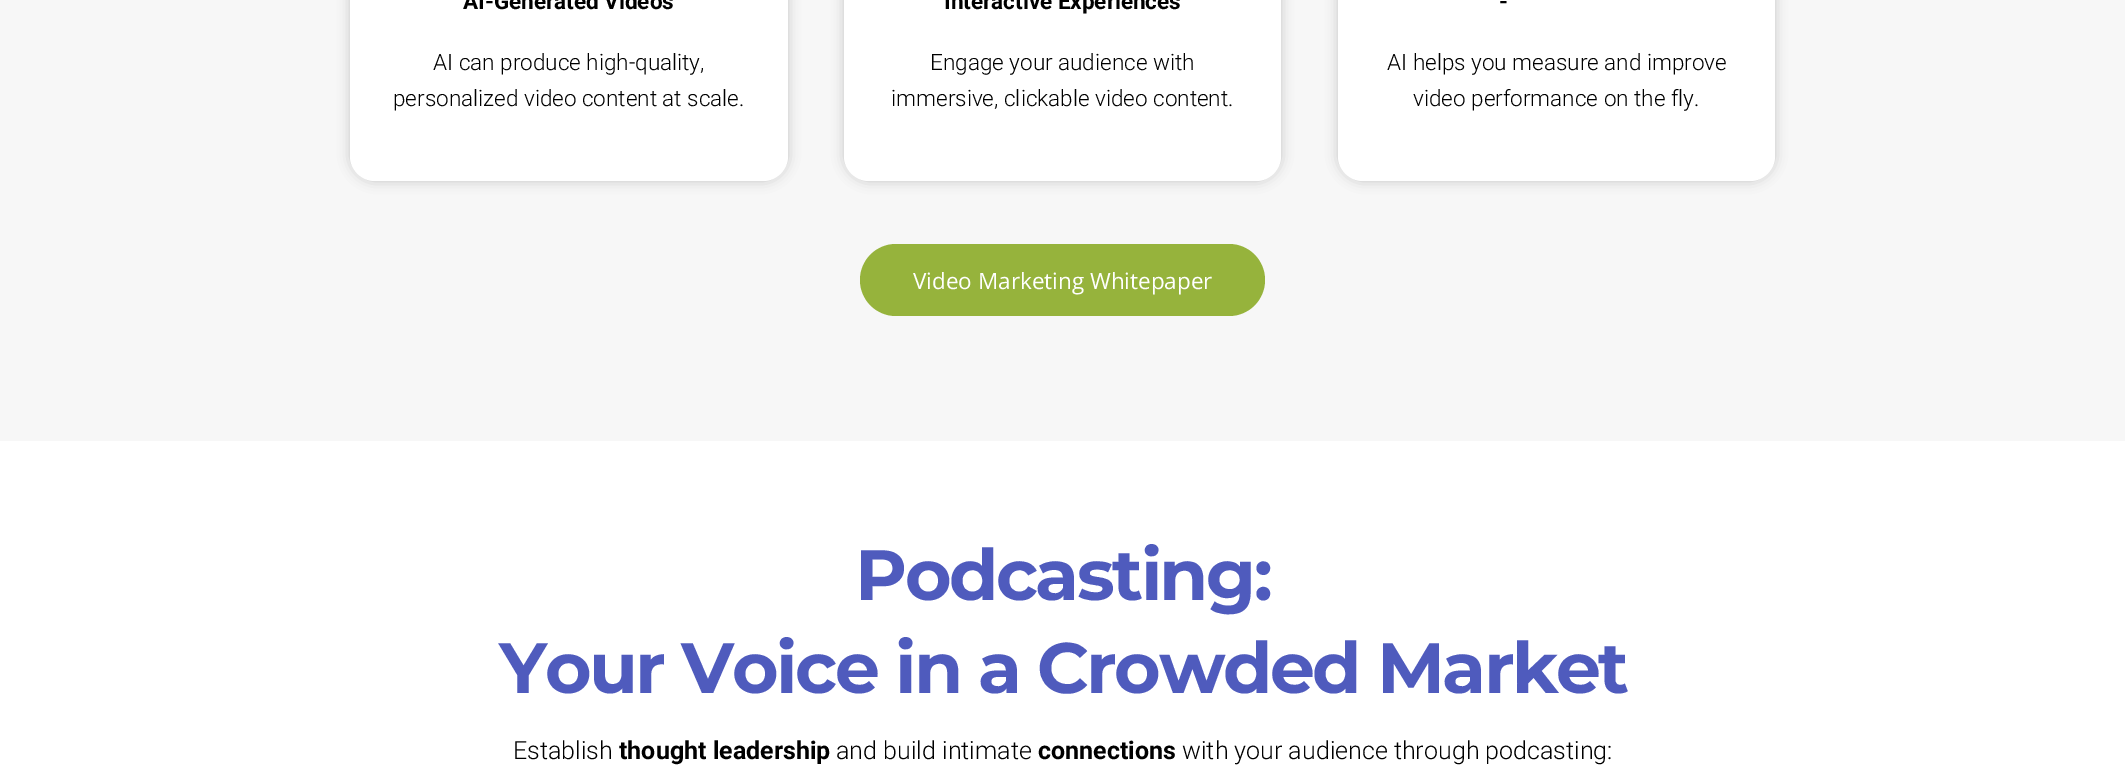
%!PS
<< /PageSize [2125 767] /PageUsesTransparency true >> setpagedevice
/rgb { 3 { 255 div 3 1 roll } repeat setrgbcolor } def
/font { [ exch dup neg 0 0 3 -1 roll 0 0 ] selectfont } def
/text { moveto show } def
/alpha { dup .setfillconstantalpha .setstrokeconstantalpha } def
/roundrect { 5 dict begin { /r /h /w /y /x } { exch def } forall
  x r add y moveto x w add y 2 copy h add r arct x w add y h add x 1 index r arct
  x y h add x y r arct x y 2 copy exch w add exch r arct closepath end } def
/shadow { 12 dict begin { /a /b /q /h /w /y /x } { exch def } forall gsave /was 0 def
  9 -2 -9 { dup b mul 4 div /e exch def 1 sub .425 mul 2.718 exch exp 1 add a .99 .min exch div /now exch def
    1 1 now sub 1 was sub div sub alpha /was now def
    w h .min e 2 mul add 0 gt { x e sub y e sub w e 2 mul add h e 2 mul add
      q e add b .6 mul add w h .min 2 div e add .min 0 .max roundrect fill } if } for grestore end } def
0 .pushpdf14devicefilter
0 767 translate 1 -1 scale
4 setmiterlimit
255 255 255 rgb
0 0 2125 767 rectfill
247 247 247 rgb
0 0 2125 441 rectfill
0 0 0 rgb
350 -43 438 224 25 6 0.2 shadow
255 255 255 rgb
350 -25 438 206 25 roundrect fill
0 0 0 rgb
844 -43 437 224 25 6 0.2 shadow
255 255 255 rgb
844 -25 437 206 25 roundrect fill
0 0 0 rgb
1338 -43 437 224 25 6 0.2 shadow
255 255 255 rgb
1338 -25 437 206 25 roundrect fill
150 179 60 rgb
860 244 405 72 36 roundrect fill
/Roboto-Bold 22.5 font
0 0 0 rgb
(AI-Generated Videos) 463 9 text
/Roboto-Light 22.5 font
(AI can produce high-quality,) 433 70 text
(personalized video content at scale.) 393 106 text
/Roboto-Bold 22.5 font
(Interactive Experiences) 944 9 text
/Roboto-Light 22.5 font
(Engage your audience with) 930 70 text
(immersive, clickable video content.) 891 106 text
/Roboto-Bold 22.5 font
(-) 1499 9 text
/Roboto-Light 22.5 font
(AI helps you measure and improve) 1387 70 text
(video performance on the fly.) 1413 106 text
/OpenSans-Regular 22.5 font
255 255 255 rgb
(Video Marketing Whitepaper) 913 289 text
/Montserrat-Bold 71.25 font
79 91 189 rgb
855 600 moveto -2.5 0 (Podcasting:) ashow
499 693 moveto -2.5 0 (Your Voice in a Crowded Market) ashow
/Roboto-Light 25 font
0 0 0 rgb
(Establish) 513 759 text
/Roboto-Bold 25 font
(thought leadership) 619 759 text
/Roboto-Light 25 font
(and build intimate) 836 759 text
/Roboto-Bold 25 font
(connections) 1038 759 text
/Roboto-Light 25 font
(with your audience through podcasting:) 1182 759 text
.poppdf14devicefilter showpage
